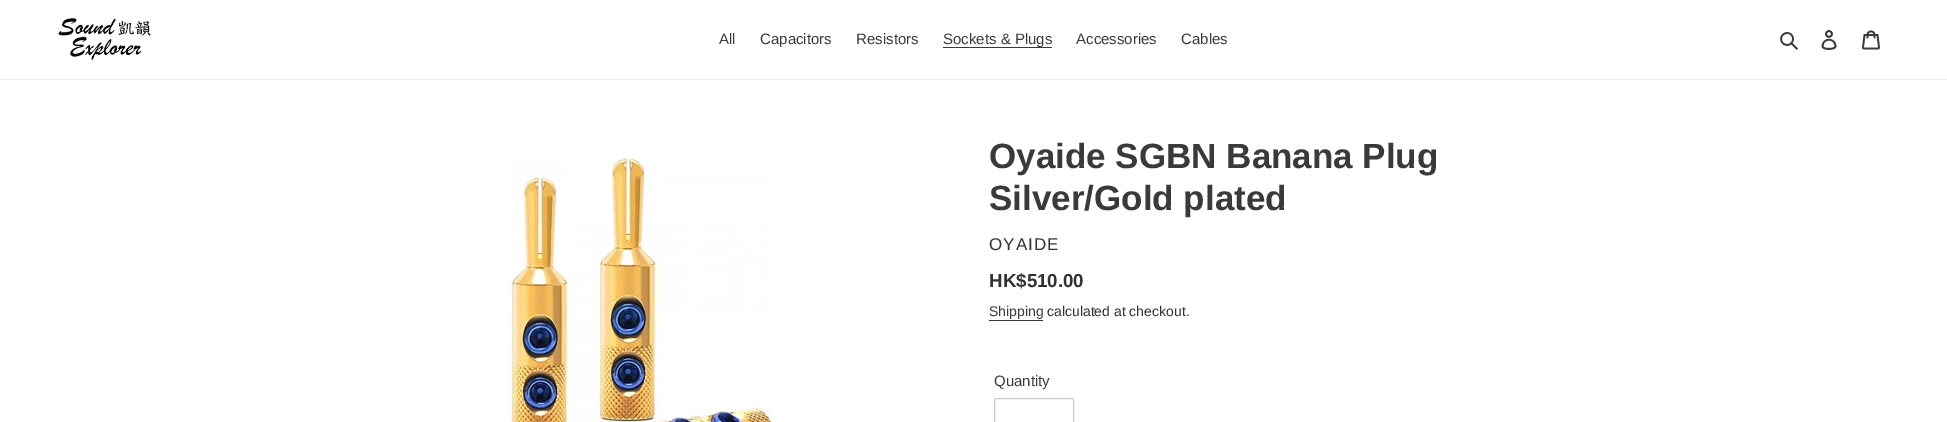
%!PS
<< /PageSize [1947 422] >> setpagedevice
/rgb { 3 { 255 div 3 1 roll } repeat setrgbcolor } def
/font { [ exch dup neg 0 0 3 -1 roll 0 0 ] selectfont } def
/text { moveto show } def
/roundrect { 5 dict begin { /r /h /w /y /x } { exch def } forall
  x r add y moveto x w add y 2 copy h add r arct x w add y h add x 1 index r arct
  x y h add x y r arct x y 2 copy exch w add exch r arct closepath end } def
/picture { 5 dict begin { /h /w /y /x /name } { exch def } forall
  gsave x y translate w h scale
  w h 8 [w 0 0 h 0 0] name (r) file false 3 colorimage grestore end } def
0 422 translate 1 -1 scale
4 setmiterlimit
255 255 255 rgb
0 0 1947 422 rectfill
235 235 235 rgb
0 79 1947 1 rectfill
(img_01.rgb) 58 18 93 42 picture
58 58 58 rgb
943 47 109 1 rectfill
(img_02.rgb) 1780 32 18 18 picture
(img_03.rgb) 1821 30 16 20 picture
(img_04.rgb) 1862 30 18 20 picture
(img_05.rgb) 508 151 265 271 picture
989 320 54 1 rectfill
204 204 204 rgb
994.5 398.5 79 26 1.5 roundrect stroke
/LiberationSans-Regular 15 font
58 58 58 rgb
(All) 719 44 text
(Capacitors) 760 44 text
(Resistors) 856 44 text
(Sockets & Plugs) 943 44 text
(Accessories) 1076 44 text
(Cables) 1181 44 text
/LiberationSans-Bold 35 font
(Oyaide SGBN Banana Plug) 989 168 text
(Silver/Gold plated) 989 210 text
/LiberationSans-Regular 17 font
51 50 50 rgb
989 250 moveto 1 0 (OYAIDE) ashow
/LiberationSans-Bold 18.75 font
(HK$510.00) 989 287 text
/LiberationSans-Regular 14 font
58 58 58 rgb
(Shipping) 989 316 text
51 50 50 rgb
(calculated at checkout.) 1047 316 text
/LiberationSans-Regular 15 font
58 58 58 rgb
(Quantity) 994 386 text
showpage
